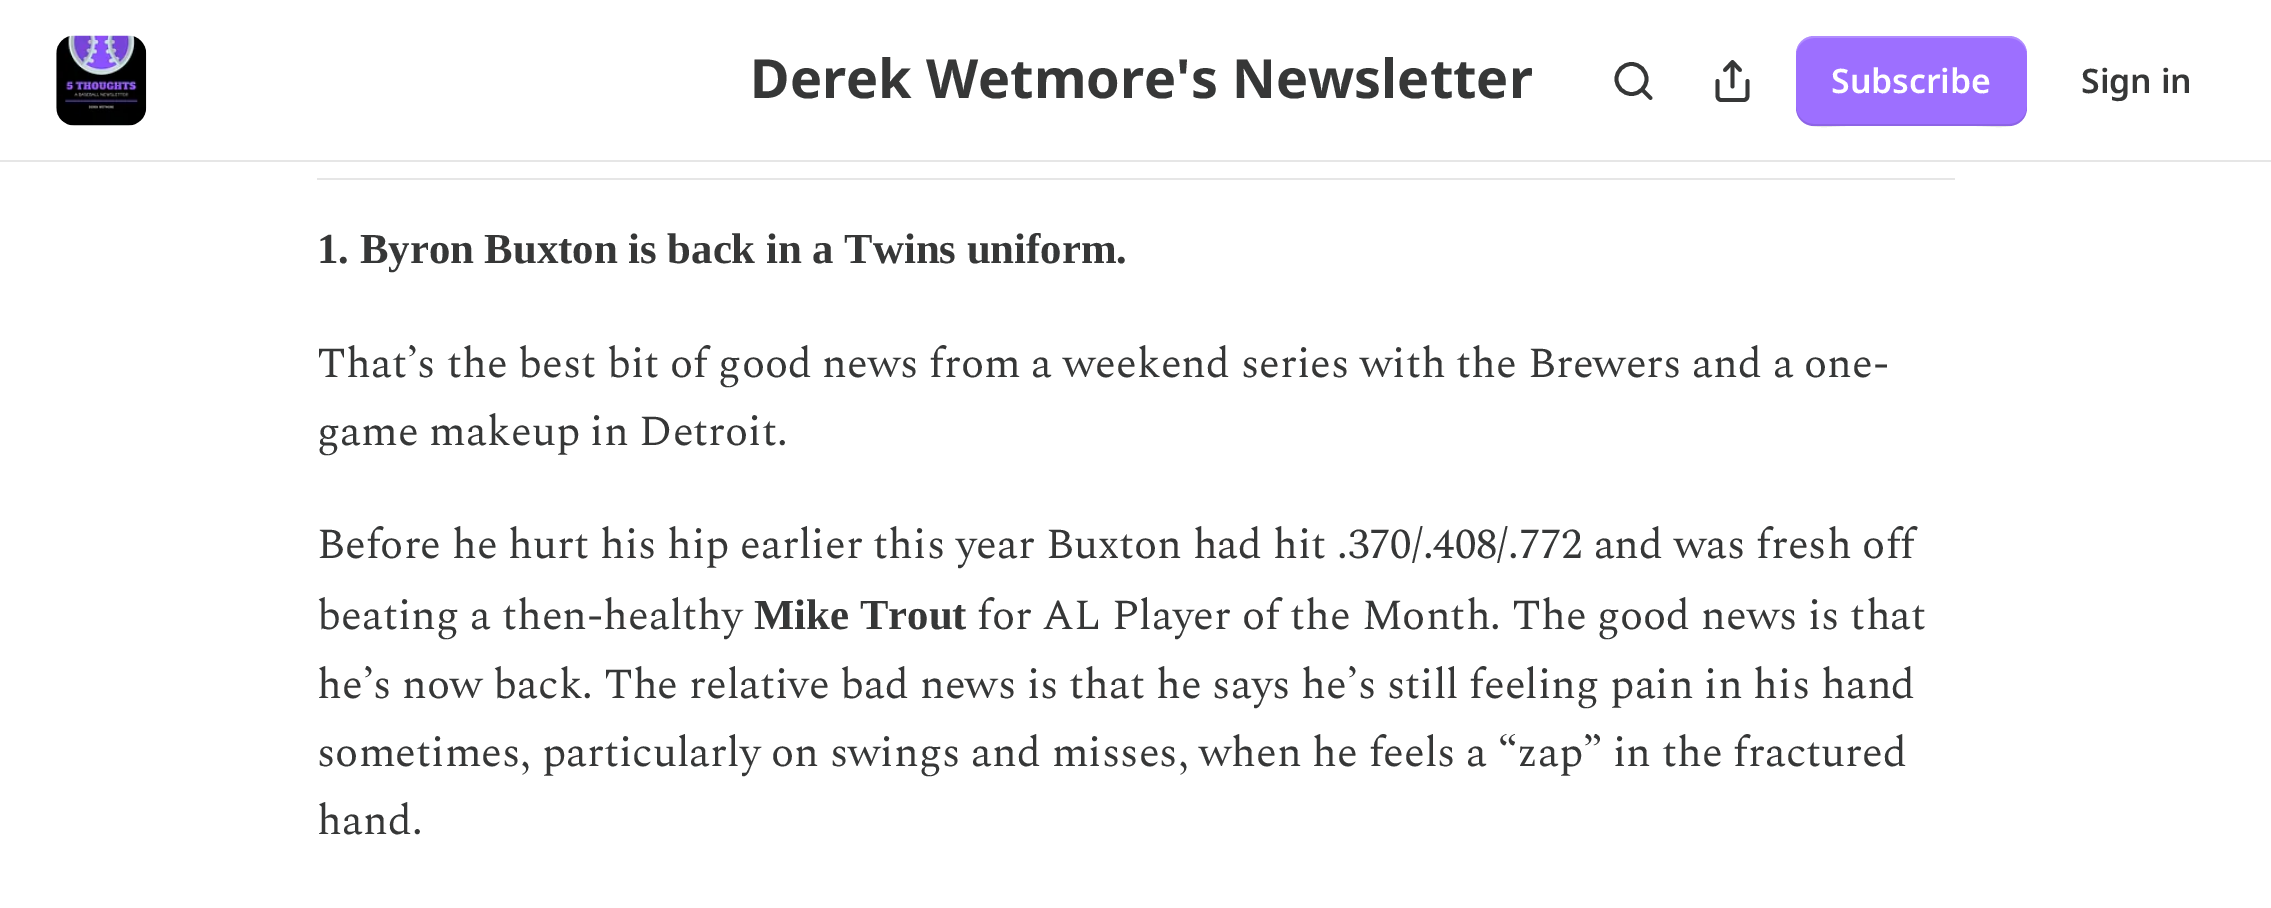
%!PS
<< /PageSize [2271 908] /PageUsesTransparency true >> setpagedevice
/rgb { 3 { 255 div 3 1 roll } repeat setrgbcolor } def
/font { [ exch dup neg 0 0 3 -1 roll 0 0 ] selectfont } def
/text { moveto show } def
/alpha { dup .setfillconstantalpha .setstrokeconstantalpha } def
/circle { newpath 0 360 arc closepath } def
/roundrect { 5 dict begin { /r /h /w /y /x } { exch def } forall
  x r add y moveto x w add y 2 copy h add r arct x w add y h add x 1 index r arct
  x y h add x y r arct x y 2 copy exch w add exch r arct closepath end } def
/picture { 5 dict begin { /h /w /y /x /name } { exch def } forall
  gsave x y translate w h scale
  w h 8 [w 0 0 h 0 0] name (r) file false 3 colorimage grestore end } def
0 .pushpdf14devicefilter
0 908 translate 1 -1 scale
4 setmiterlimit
255 255 255 rgb
0 0 2271 908 rectfill
230 230 230 rgb
0 160 2271 2 rectfill
(img_01.rgb) 56 35 91 91 picture
54 55 55 rgb
3.8 setlinewidth
1631.5 79 15 circle stroke
1 setlinecap
1 setlinejoin
1650.5 98 moveto -8 -8 rlineto stroke
1717.5 81 moveto 0 15 rlineto 0 2 1.5 4 3.5 4 rcurveto 23 0 rlineto 2 0 3.5 -2 3.5 -4 rcurveto 0 -15 rlineto 1740 70 moveto -7.5 -8 rlineto -7.5 8 rlineto 1732.5 62 moveto 0 24.5 rlineto stroke
157 111 255 rgb
1796 36 231 90 18 roundrect fill
0.1 alpha
0 0 0 rgb
1796 106 moveto 0 28 33 20 50 20 rcurveto 130 0 rlineto 18 0 51 8 51 -20 rcurveto 0 10 -8 18 -18 18 rcurveto -195 0 rlineto -10 0 -18 -8 -18 -18 rcurveto closepath fill
0.2 alpha
255 255 255 rgb
1814 38 moveto 195 0 rlineto 10 0 18 8 18 18 rcurveto 0 -28 -33 -20 -51 -20 rcurveto -130 0 rlineto -17 0 -50 -8 -50 20 rcurveto 0 -10 8 -18 18 -18 rcurveto closepath fill
1 alpha
230 230 230 rgb
317 178 1638 2 rectfill
gsave
752 43 780 76 rectclip
/NotoSans-Bold 54 font
54 55 55 rgb
(Derek Wetmore's Newsletter) 750 98 text
grestore
/NotoSans-SemiBold 33.75 font
255 255 255 rgb
(Subscribe) 1831 93 text
54 55 55 rgb
(Sign in) 2081 93 text
/LiberationSerif-Bold 42.75 font
(1. Byron Buxton is back in a Twins uniform.) 317 263 text
/Spectral-Regular 42.75 font
(That’s the best bit of good news from a weekend series with the Brewers and a one-) 317 377 text
(game makeup in Detroit.) 317 445 text
(Before he hurt his hip earlier this year Buxton had hit .370/.408/.772 and was fresh off) 317 558 text
(beating a then-healthy) 317 629 text
/LiberationSerif-Bold 42.75 font
(Mike Trout) 754 629 text
/Spectral-Regular 42.75 font
(for AL Player of the Month. The good news is that) 977 629 text
(he’s now back. The relative bad news is that he says he’s still feeling pain in his hand) 317 698 text
(sometimes, particularly on swings and misses, when he feels a “zap” in the fractured) 317 766 text
(hand.) 317 834 text
.poppdf14devicefilter showpage
